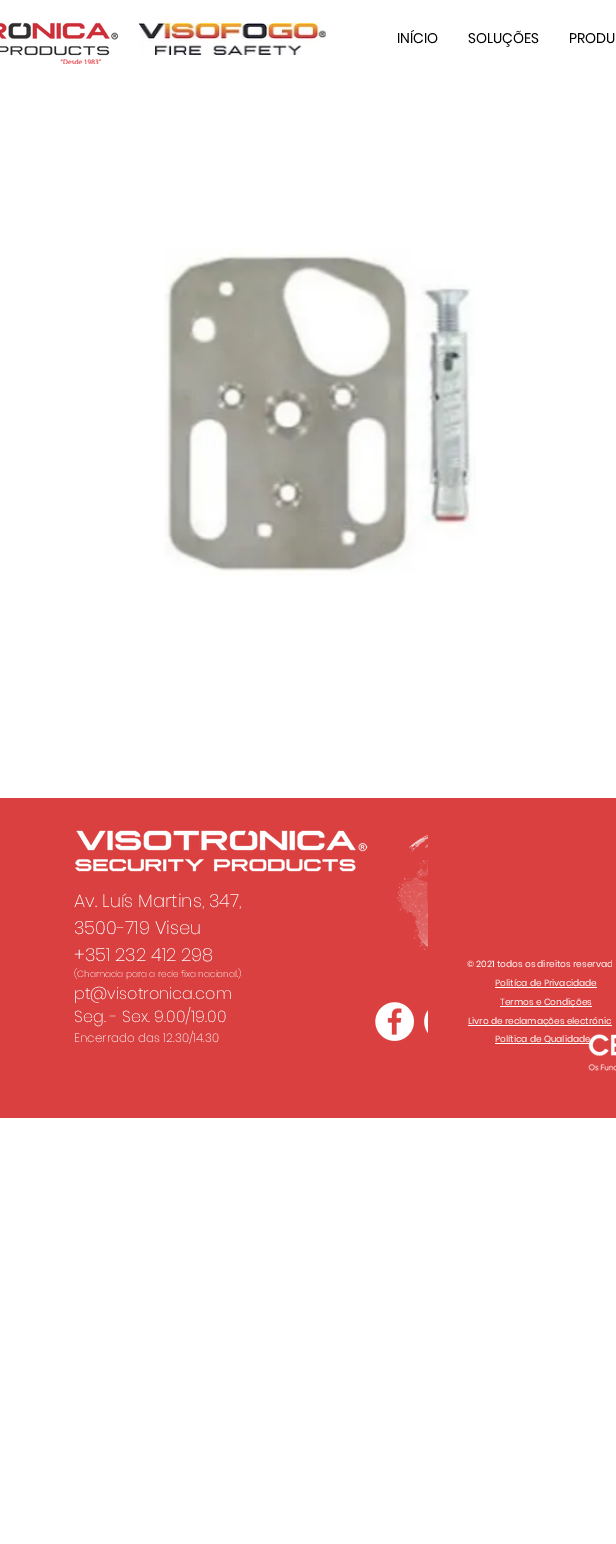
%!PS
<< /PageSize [616 1544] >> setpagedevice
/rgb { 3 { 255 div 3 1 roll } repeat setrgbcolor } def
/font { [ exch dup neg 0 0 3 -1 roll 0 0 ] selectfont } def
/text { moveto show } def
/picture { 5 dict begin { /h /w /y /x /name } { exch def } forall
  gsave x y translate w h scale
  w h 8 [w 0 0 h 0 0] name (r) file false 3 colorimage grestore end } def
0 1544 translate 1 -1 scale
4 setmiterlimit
255 255 255 rgb
0 0 616 1544 rectfill
(img_01.rgb) 0 22 119 42 picture
(img_02.rgb) 139 23 187 32 picture
(img_03.rgb) 164 248 312 328 picture
219 64 64 rgb
0 798 612 320 rectfill
(img_04.rgb) 75 830 293 42 picture
(img_05.rgb) 397 835 31 115 picture
(img_06.rgb) 375 1002 39 39 picture
(img_07.rgb) 424 1010 4 23 picture
255 255 255 rgb
495 987 102 1 rectfill
500 1006 92 1 rectfill
468 1025 148 1 rectfill
495 1043 95 1 rectfill
/Poppins-Regular 14 font
0 0 0 rgb
(INÍCIO) 397 43 text
(SOLUÇÕES) 468 43 text
(PRODU) 569 43 text
/Poppins-ExtraLight 18 font
255 255 255 rgb
(Av. Luís Martins, 347,) 74 907 text
(3500-719 Viseu) 74 934 text
(+351 232 412 298) 74 961 text
/Poppins-ExtraLight 9 font
(\(Chamada para a rede fixa nacional.\)) 74 977 text
/Poppins-ExtraLight 16 font
(pt@visotronica.com) 74 999 text
(Seg. - Sex. 9.00/19.00) 74 1022 text
/Poppins-ExtraLight 12 font
(Encerrado das 12.30/14.30) 74 1042 text
/Poppins-Regular 9 font
(© 2021 todos os direitos reservad) 467 967 text
219 64 64 rgb
612 798 4 320 rectfill
255 255 255 rgb
(Politíca de Privacidade) 495 986 text
(Termos e Condições) 500 1005 text
(Livro de reclamações electrónic) 468 1024 text
(Política de Qualidade) 495 1042 text
(img_08.rgb) 588 1034 28 37 picture
showpage
